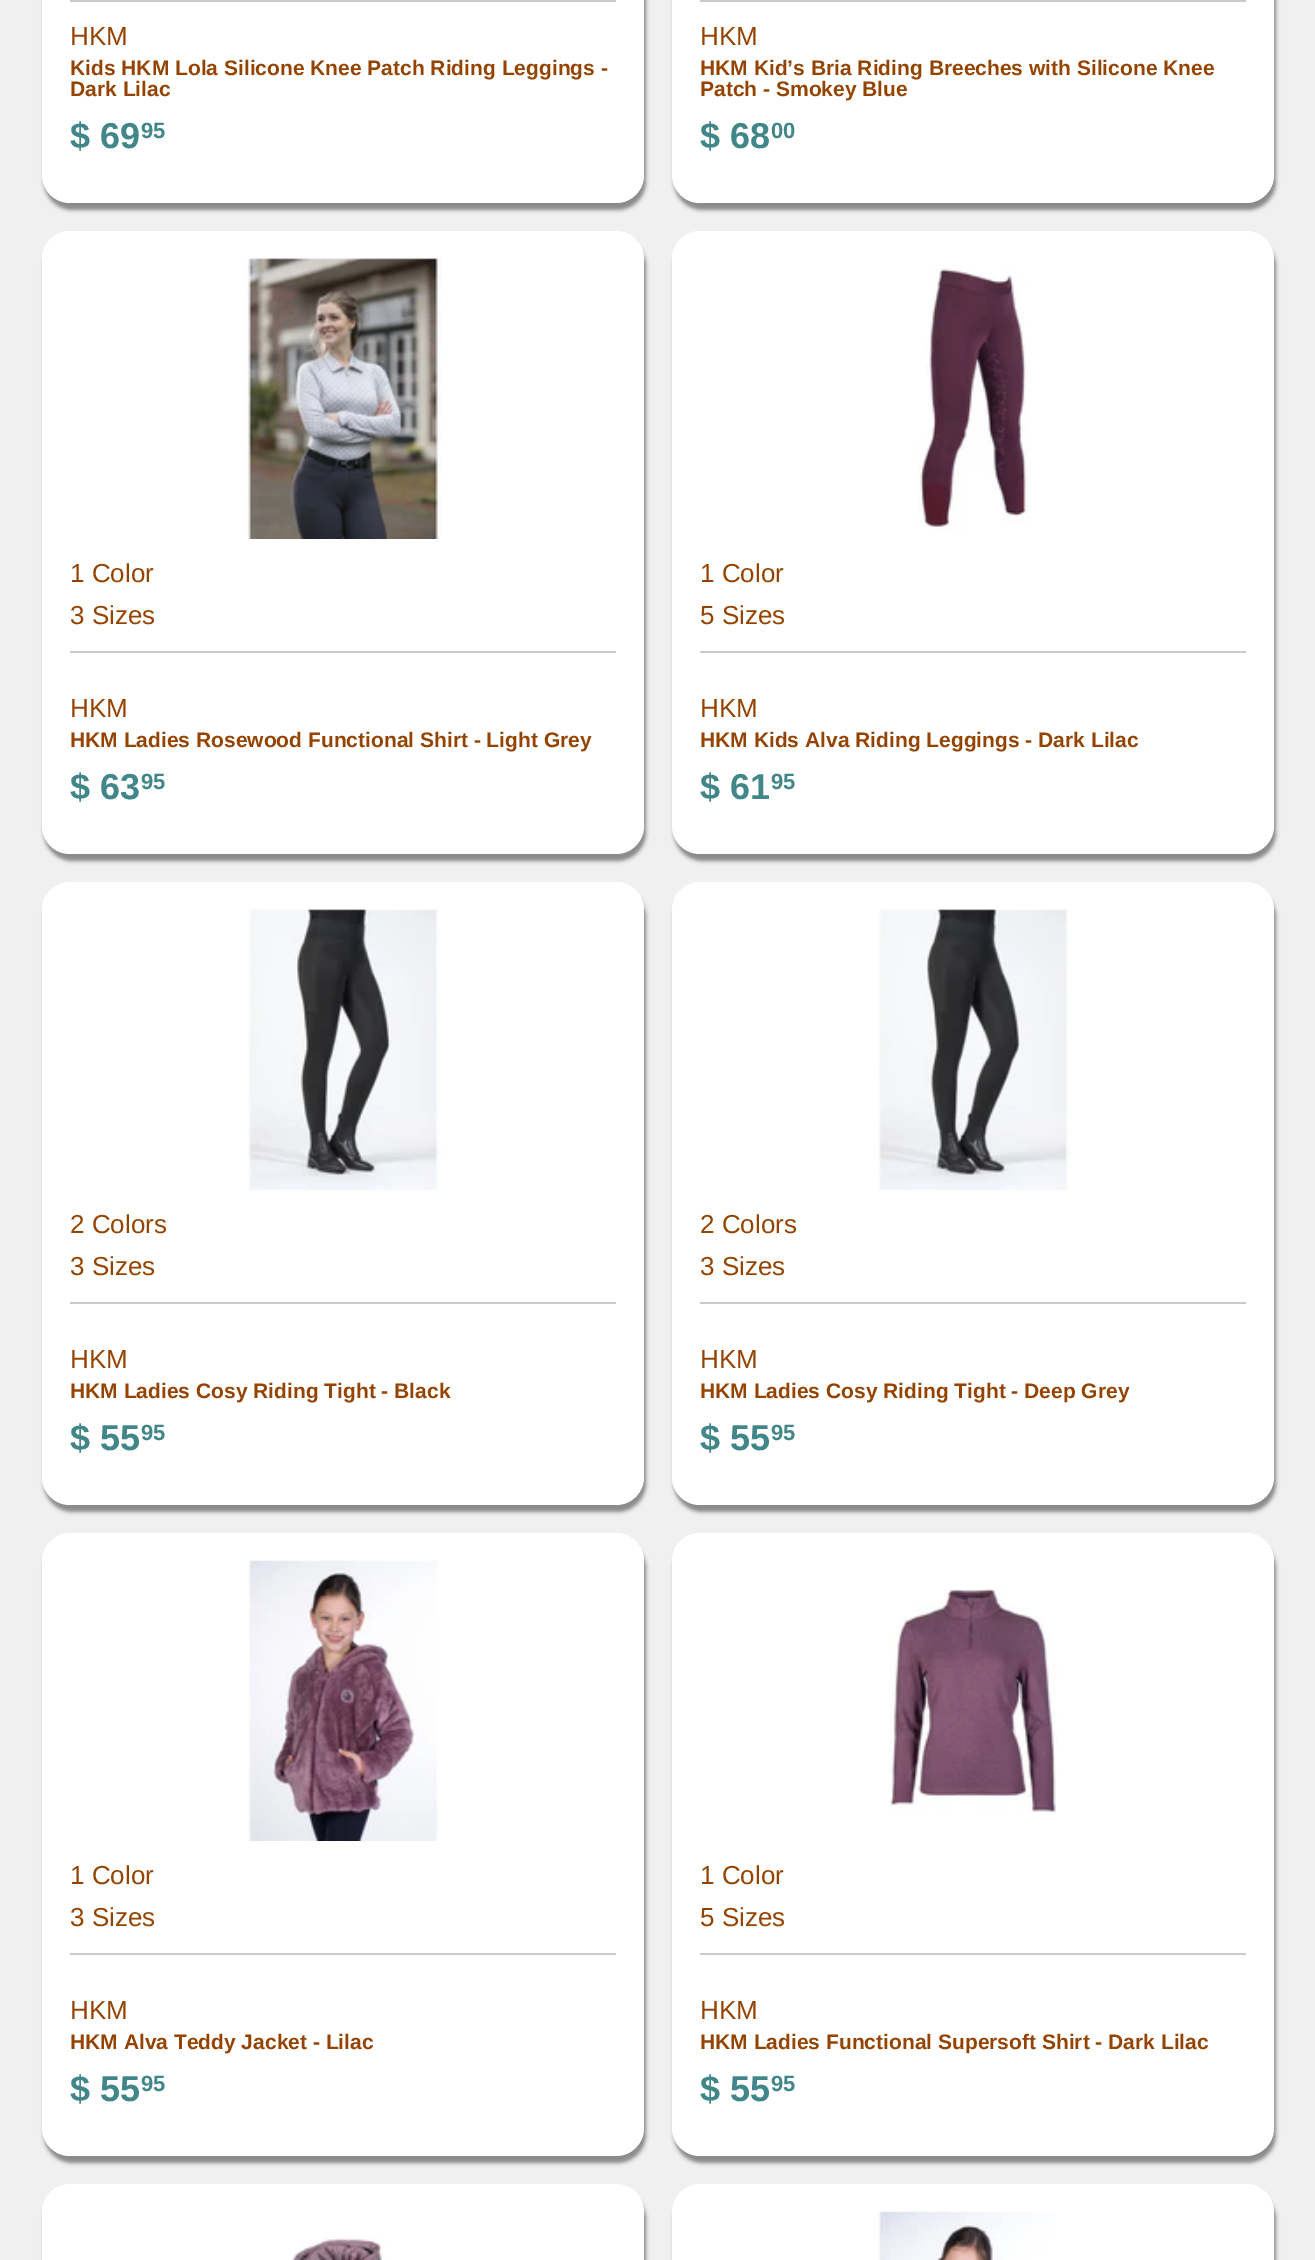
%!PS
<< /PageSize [1315 2260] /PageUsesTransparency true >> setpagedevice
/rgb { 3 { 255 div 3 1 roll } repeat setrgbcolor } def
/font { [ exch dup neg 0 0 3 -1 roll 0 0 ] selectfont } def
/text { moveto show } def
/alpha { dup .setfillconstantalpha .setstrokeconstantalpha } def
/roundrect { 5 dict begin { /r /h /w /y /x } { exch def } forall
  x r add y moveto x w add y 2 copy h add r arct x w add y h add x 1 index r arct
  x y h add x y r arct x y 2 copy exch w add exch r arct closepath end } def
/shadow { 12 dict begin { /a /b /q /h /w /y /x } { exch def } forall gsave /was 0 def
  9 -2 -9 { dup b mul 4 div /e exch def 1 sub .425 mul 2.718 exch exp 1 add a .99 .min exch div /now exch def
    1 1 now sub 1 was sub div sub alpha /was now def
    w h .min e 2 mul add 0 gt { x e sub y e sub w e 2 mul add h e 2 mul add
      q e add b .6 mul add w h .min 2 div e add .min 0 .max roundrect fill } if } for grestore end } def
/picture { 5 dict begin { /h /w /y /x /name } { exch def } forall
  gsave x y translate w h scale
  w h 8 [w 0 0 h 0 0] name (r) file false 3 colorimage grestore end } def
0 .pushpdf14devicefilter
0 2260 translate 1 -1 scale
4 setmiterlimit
240 240 240 rgb
0 0 1315 2260 rectfill
136 136 136 rgb
44 -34 602 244 28 2 1 shadow
255 255 255 rgb
42 -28 602 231 28 roundrect fill
202 202 202 rgb
70 0 546 2 rectfill
136 136 136 rgb
674 -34 602 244 28 2 1 shadow
255 255 255 rgb
672 -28 602 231 28 roundrect fill
202 202 202 rgb
700 0 546 2 rectfill
136 136 136 rgb
44 238 602 623 28 2 1 shadow
255 255 255 rgb
42 231 602 623 28 roundrect fill
(img_01.rgb) 245 258 196 281 picture
202 202 202 rgb
70 651 546 2 rectfill
136 136 136 rgb
674 238 602 623 28 2 1 shadow
255 255 255 rgb
672 231 602 623 28 roundrect fill
(img_02.rgb) 917 268 112 264 picture
202 202 202 rgb
700 651 546 2 rectfill
136 136 136 rgb
44 889 602 623 28 2 1 shadow
255 255 255 rgb
42 882 602 623 28 roundrect fill
(img_03.rgb) 248 909 193 281 picture
202 202 202 rgb
70 1302 546 2 rectfill
136 136 136 rgb
674 889 602 623 28 2 1 shadow
255 255 255 rgb
672 882 602 623 28 roundrect fill
(img_04.rgb) 878 909 193 281 picture
202 202 202 rgb
700 1302 546 2 rectfill
136 136 136 rgb
44 1540 602 623 28 2 1 shadow
255 255 255 rgb
42 1533 602 623 28 roundrect fill
(img_05.rgb) 248 1560 190 281 picture
202 202 202 rgb
70 1953 546 2 rectfill
136 136 136 rgb
674 1540 602 623 28 2 1 shadow
255 255 255 rgb
672 1533 602 623 28 roundrect fill
(img_06.rgb) 889 1588 168 225 picture
202 202 202 rgb
700 1953 546 2 rectfill
136 136 136 rgb
44 2191 602 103 28 2 1 shadow
255 255 255 rgb
42 2184 602 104 28 roundrect fill
(img_07.rgb) 292 2238 93 22 picture
136 136 136 rgb
674 2191 602 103 28 2 1 shadow
255 255 255 rgb
672 2184 602 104 28 roundrect fill
(img_08.rgb) 878 2211 178 49 picture
/LiberationSans-Regular 26 font
148 67 0 rgb
(HKM) 70 45 text
/LiberationSans-Bold 21 font
(Kids HKM Lola Silicone Knee Patch Riding Leggings -) 70 75 text
(Dark Lilac) 70 96 text
/LiberationSans-Bold 36 font
65 134 137 rgb
($ 69) 70 148 text
/LiberationSans-Bold 22 font
(95) 141 138 text
/LiberationSans-Regular 26 font
148 67 0 rgb
(HKM) 700 45 text
/LiberationSans-Bold 21 font
(HKM Kid’s Bria Riding Breeches with Silicone Knee) 700 75 text
(Patch - Smokey Blue) 700 96 text
/LiberationSans-Bold 36 font
65 134 137 rgb
($ 68) 700 148 text
/LiberationSans-Bold 22 font
(00) 771 138 text
/LiberationSans-Regular 26 font
148 67 0 rgb
(1 Color) 70 582 text
(3 Sizes) 70 624 text
(HKM) 70 717 text
/LiberationSans-Bold 21 font
(HKM Ladies Rosewood Functional Shirt - Light Grey) 70 747 text
/LiberationSans-Bold 36 font
65 134 137 rgb
($ 63) 70 799 text
/LiberationSans-Bold 22 font
(95) 141 789 text
/LiberationSans-Regular 26 font
148 67 0 rgb
(1 Color) 700 582 text
(5 Sizes) 700 624 text
(HKM) 700 717 text
/LiberationSans-Bold 21 font
(HKM Kids Alva Riding Leggings - Dark Lilac) 700 747 text
/LiberationSans-Bold 36 font
65 134 137 rgb
($ 61) 700 799 text
/LiberationSans-Bold 22 font
(95) 771 789 text
/LiberationSans-Regular 26 font
148 67 0 rgb
(2 Colors) 70 1233 text
(3 Sizes) 70 1275 text
(HKM) 70 1368 text
/LiberationSans-Bold 21 font
(HKM Ladies Cosy Riding Tight - Black) 70 1398 text
/LiberationSans-Bold 36 font
65 134 137 rgb
($ 55) 70 1450 text
/LiberationSans-Bold 22 font
(95) 141 1440 text
/LiberationSans-Regular 26 font
148 67 0 rgb
(2 Colors) 700 1233 text
(3 Sizes) 700 1275 text
(HKM) 700 1368 text
/LiberationSans-Bold 21 font
(HKM Ladies Cosy Riding Tight - Deep Grey) 700 1398 text
/LiberationSans-Bold 36 font
65 134 137 rgb
($ 55) 700 1450 text
/LiberationSans-Bold 22 font
(95) 771 1440 text
/LiberationSans-Regular 26 font
148 67 0 rgb
(1 Color) 70 1884 text
(3 Sizes) 70 1926 text
(HKM) 70 2019 text
/LiberationSans-Bold 21 font
(HKM Alva Teddy Jacket - Lilac) 70 2049 text
/LiberationSans-Bold 36 font
65 134 137 rgb
($ 55) 70 2101 text
/LiberationSans-Bold 22 font
(95) 141 2091 text
/LiberationSans-Regular 26 font
148 67 0 rgb
(1 Color) 700 1884 text
(5 Sizes) 700 1926 text
(HKM) 700 2019 text
/LiberationSans-Bold 21 font
(HKM Ladies Functional Supersoft Shirt - Dark Lilac) 700 2049 text
/LiberationSans-Bold 36 font
65 134 137 rgb
($ 55) 700 2101 text
/LiberationSans-Bold 22 font
(95) 771 2091 text
.poppdf14devicefilter showpage
